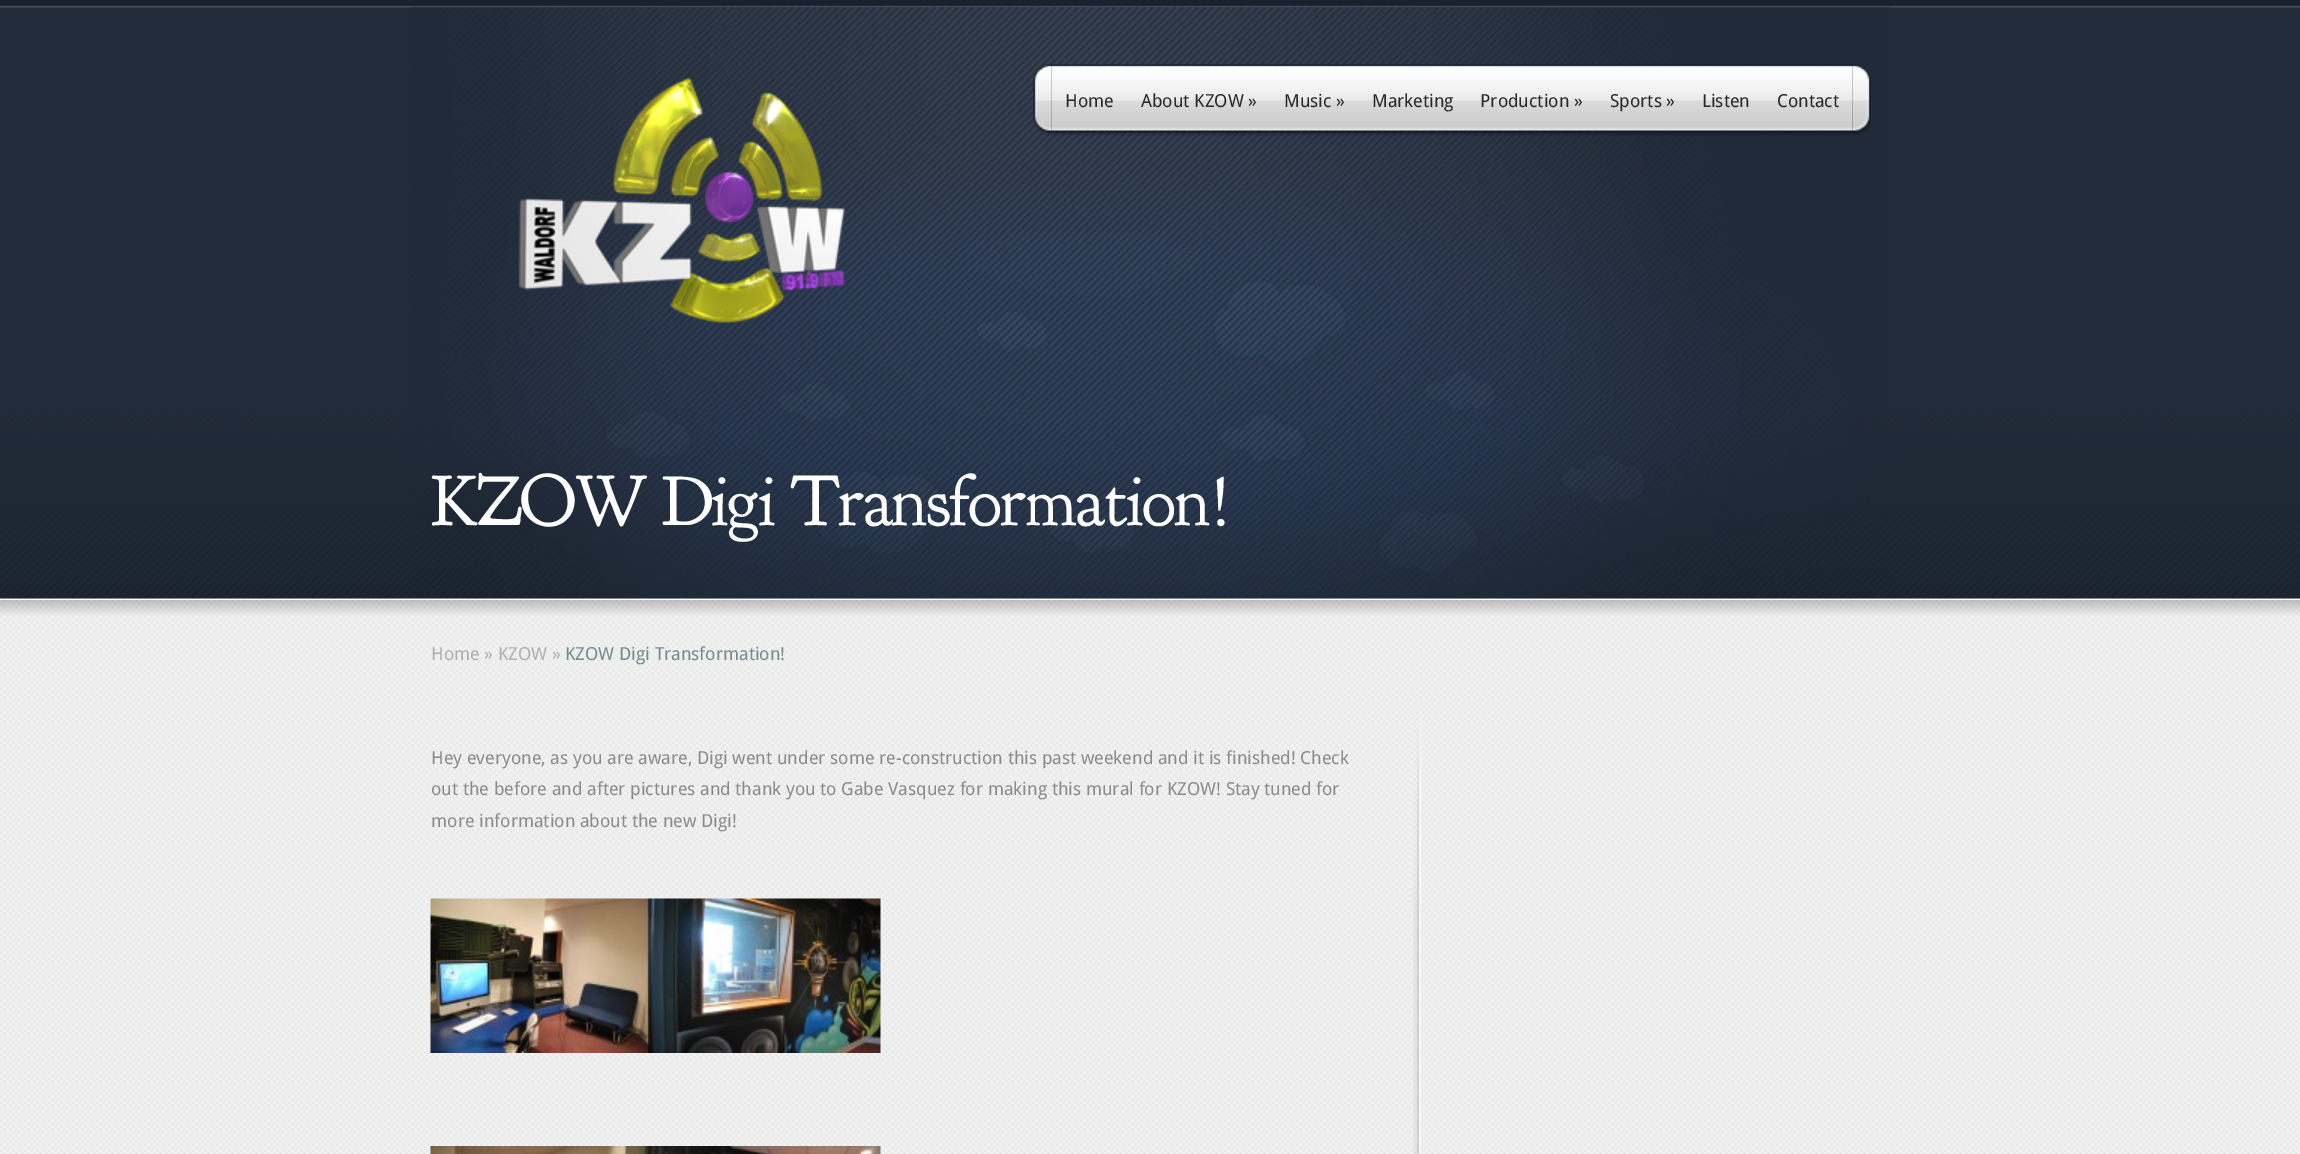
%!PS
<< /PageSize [2300 1154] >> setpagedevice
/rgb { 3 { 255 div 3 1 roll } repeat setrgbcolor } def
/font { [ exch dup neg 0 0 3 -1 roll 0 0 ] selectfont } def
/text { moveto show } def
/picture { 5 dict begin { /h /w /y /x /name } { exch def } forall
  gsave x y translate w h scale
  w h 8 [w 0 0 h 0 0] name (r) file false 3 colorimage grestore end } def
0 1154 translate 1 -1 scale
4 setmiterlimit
255 255 255 rgb
0 0 2300 1154 rectfill
(img_01.rgb) 0 0 2300 599 picture
(img_02.rgb) 411 7 1479 592 picture
(img_03.rgb) 518 77 327 246 picture
(img_04.rgb) 1033 64 19 72 picture
(img_05.rgb) 1852 64 19 71 picture
(img_06.rgb) 1051 64 802 72 picture
(img_07.rgb) 0 598 2300 556 picture
0 599 2300 1 rectfill
(img_08.rgb) 0 600 2300 16 picture
(img_09.rgb) 1413 712 8 442 picture
(img_10.rgb) 1410 712 11 193 picture
(img_11.rgb) 430 898 451 155 picture
(img_12.rgb) 430 1146 451 8 picture
/DroidSans-Regular 18 font
41 41 41 rgb
(Home) 1065 107 text
(About KZOW ») 1141 107 text
(Music ») 1284 107 text
(Marketing) 1372 107 text
(Production ») 1480 107 text
(Sports ») 1610 107 text
(Listen) 1702 107 text
(Contact) 1777 107 text
/GoudyBookletter1911-Regular 72 font
255 255 255 rgb
431 525 moveto -1.5 0 (KZOW Digi Transformation!) ashow
/DroidSans-Regular 18 font
176 175 175 rgb
(Home » KZOW ») 431 660 text
117 139 141 rgb
(KZOW Digi Transformation!) 565 660 text
140 139 139 rgb
(Hey everyone, as you are aware, Digi went under some re-construction this past weekend and it is finished! Check) 431 764 text
(out the before and after pictures and thank you to Gabe Vasquez for making this mural for KZOW! Stay tuned for) 431 795 text
(more information about the new Digi!) 431 827 text
showpage
